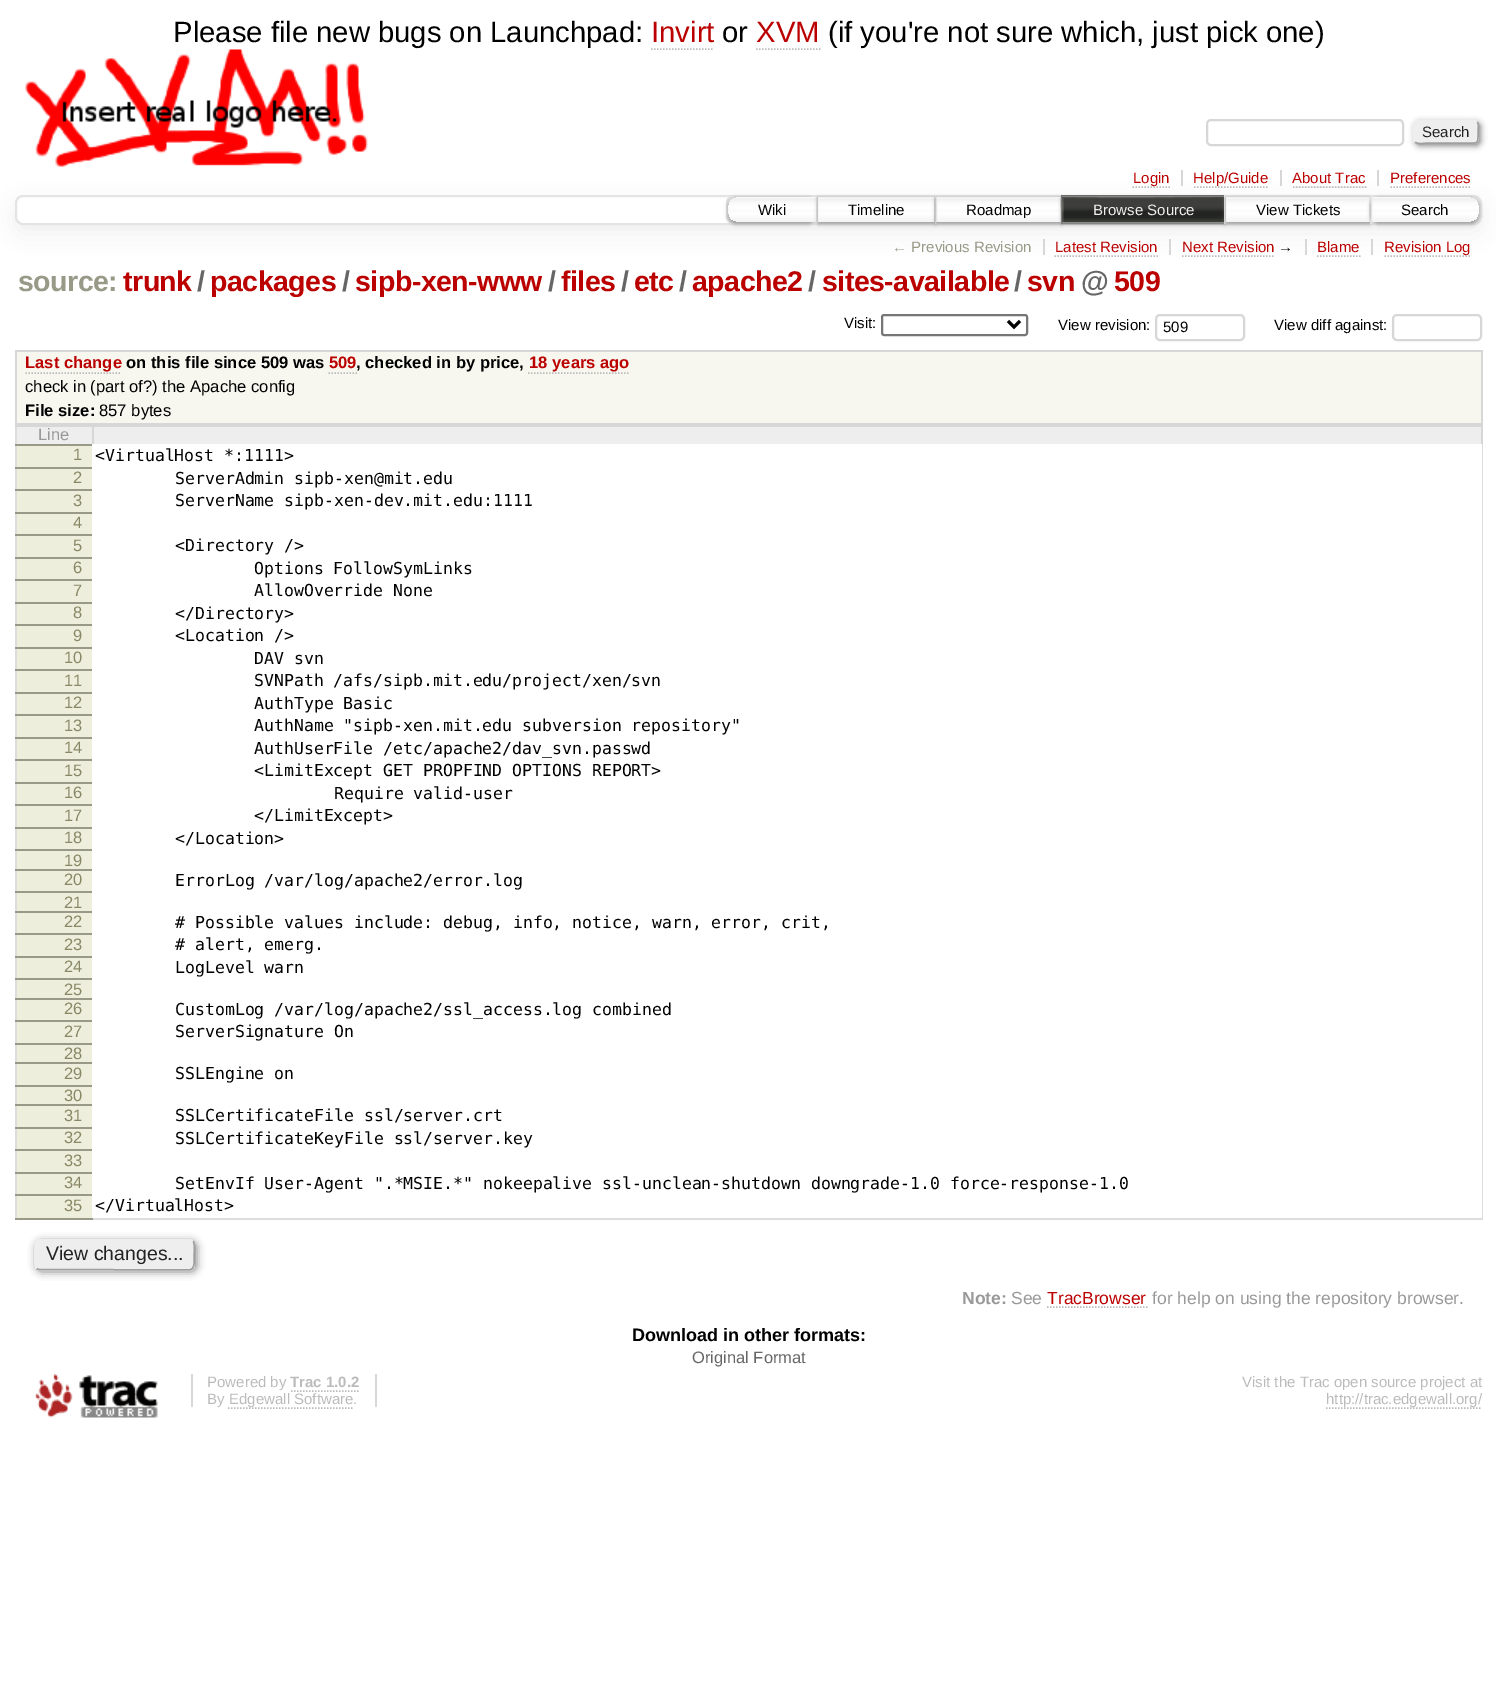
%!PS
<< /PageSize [1496 1706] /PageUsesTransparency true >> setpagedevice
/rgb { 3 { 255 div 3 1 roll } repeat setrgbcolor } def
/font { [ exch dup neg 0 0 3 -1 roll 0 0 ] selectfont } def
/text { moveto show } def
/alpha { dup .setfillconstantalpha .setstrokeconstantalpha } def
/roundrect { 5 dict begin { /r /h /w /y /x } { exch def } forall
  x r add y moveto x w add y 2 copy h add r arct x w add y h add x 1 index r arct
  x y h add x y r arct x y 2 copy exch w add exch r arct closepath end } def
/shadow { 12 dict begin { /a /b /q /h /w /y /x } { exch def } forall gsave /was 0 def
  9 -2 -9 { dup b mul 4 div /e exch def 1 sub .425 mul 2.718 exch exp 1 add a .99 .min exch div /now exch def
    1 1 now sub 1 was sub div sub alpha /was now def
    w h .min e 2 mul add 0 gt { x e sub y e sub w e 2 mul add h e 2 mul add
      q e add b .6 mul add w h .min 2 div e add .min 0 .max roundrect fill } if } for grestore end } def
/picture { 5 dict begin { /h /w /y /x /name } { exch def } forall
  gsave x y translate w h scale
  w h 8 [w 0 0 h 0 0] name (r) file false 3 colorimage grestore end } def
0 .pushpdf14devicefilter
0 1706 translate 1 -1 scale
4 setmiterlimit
255 255 255 rgb
0 0 1496 1706 rectfill
187 187 187 rgb
1.5 setlinewidth
[1.5 1.5] 0 setdash
651 49 moveto 63 0 rlineto stroke
756 49 moveto 64.5 0 rlineto stroke
(img_01.rgb) 25 49 343 118 picture
215 215 215 rgb
2 setlinewidth
[] 0 setdash
1207 120 196 25 4 roundrect stroke
136 136 136 rgb
1415 122 66 24 5 3 1 shadow
238 238 238 rgb
1413 120 66 24 5 roundrect fill
159 159 159 rgb
1.5 setlinewidth
1477 122 moveto 2.5 2 1 7 1 10 rcurveto 0 13 1 11 -13 11 rcurveto -38 0 rlineto -0.5 0 -9.5 2 -12 -1 rcurveto stroke
238 238 238 rgb
1415 142 moveto -2.5 -2 -1 -7 -1 -10 rcurveto 0 -13 -1 -11 13 -11 rcurveto 38 0 rlineto 0.5 0 9.5 -2 12 1 rcurveto stroke
gsave
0 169 moveto 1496 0 rlineto 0 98 rlineto -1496 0 rlineto closepath 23 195 moveto 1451 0 rlineto 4.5 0 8 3.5 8 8 rcurveto 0 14 rlineto 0 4.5 -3.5 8 -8 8 rcurveto -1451 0 rlineto -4.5 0 -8 -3.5 -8 -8 rcurveto 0 -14 rlineto 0 -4.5 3.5 -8 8 -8 rcurveto closepath eoclip newpath
15 203 1467 30 8 11 1 shadow
grestore
215 215 215 rgb
1181 170 2 16 rectfill
187 187 187 rgb
[1.5 1.5] 0 setdash
1132.5 187 moveto 37.5 0 rlineto stroke
215 215 215 rgb
1280 170 2 16 rectfill
187 187 187 rgb
1194 187 moveto 75 0 rlineto stroke
215 215 215 rgb
1377 170 2 16 rectfill
187 187 187 rgb
1293 187 moveto 73.5 0 rlineto stroke
1390.5 187 moveto 81 0 rlineto stroke
228 228 228 rgb
2 setlinewidth
[] 0 setdash
16 196 1465 28 7 roundrect stroke
255 255 255 rgb
734 195 moveto 84 0 rlineto 0 29 rlineto -84 0 rlineto -4.5 0 -8 -3.5 -8 -8 rcurveto 0 -13 rlineto 0 -4.5 3.5 -8 8 -8 rcurveto closepath fill
(img_02.rgb) 726 198 90 25 picture
228 228 228 rgb
734 196 moveto 83 0 rlineto 0 27 rlineto -83 0 rlineto -4 0 -7 -3 -7 -7 rcurveto 0 -13 rlineto 0 -4 3 -7 7 -7 rcurveto closepath stroke
gsave
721 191 moveto 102 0 rlineto 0 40 rlineto -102 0 rlineto closepath 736 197 moveto 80 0 rlineto 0 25 rlineto -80 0 rlineto -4.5 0 -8 -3.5 -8 -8 rcurveto 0 -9 rlineto 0 -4.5 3.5 -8 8 -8 rcurveto closepath eoclip newpath
153 153 153 rgb
728 198 88 26 8 2 1 shadow
grestore
255 255 255 rgb
818 201 2 20 rectfill
(img_03.rgb) 818 198 116 24 picture
228 228 228 rgb
817 196 118 27 rectstroke
gsave
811 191 moveto 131 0 rlineto 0 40 rlineto -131 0 rlineto closepath 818 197 moveto 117 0 rlineto 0 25 rlineto -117 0 rlineto closepath eoclip newpath
153 153 153 rgb
818 198 117 26 0 2 1 shadow
grestore
255 255 255 rgb
937 197 2 25 rectfill
(img_04.rgb) 934 198 126 24 picture
228 228 228 rgb
936 196 125 27 rectstroke
gsave
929 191 moveto 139 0 rlineto 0 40 rlineto -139 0 rlineto closepath 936 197 moveto 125 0 rlineto 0 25 rlineto -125 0 rlineto closepath eoclip newpath
153 153 153 rgb
936 198 125 26 0 2 1 shadow
grestore
(img_05.rgb) 1060 198 1 9 picture
102 102 102 rgb
1062 196 163 27 rectstroke
153 153 153 rgb
1062 198 162 26 0 2 1 shadow
0 0 0 rgb
1062 197 162 25 rectfill
(img_06.rgb) 1062 196 162 26 picture
255 255 255 rgb
1226 197 2 25 rectfill
(img_07.rgb) 1226 198 143 24 picture
228 228 228 rgb
1225 196 145 27 rectstroke
gsave
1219 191 moveto 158 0 rlineto 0 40 rlineto -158 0 rlineto closepath 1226 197 moveto 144 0 rlineto 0 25 rlineto -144 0 rlineto closepath eoclip newpath
153 153 153 rgb
1226 198 144 26 0 2 1 shadow
grestore
255 255 255 rgb
1370 195 moveto 103 0 rlineto 4.5 0 8 3.5 8 8 rcurveto 0 13 rlineto 0 4.5 -3.5 8 -8 8 rcurveto -103 0 rlineto closepath fill
(img_08.rgb) 1372 198 108 24 picture
228 228 228 rgb
1371 196 moveto 102 0 rlineto 4 0 7 3 7 7 rcurveto 0 13 rlineto 0 4 -3 7 -7 7 rcurveto -102 0 rlineto closepath stroke
gsave
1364 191 moveto 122 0 rlineto 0 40 rlineto -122 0 rlineto closepath 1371 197 moveto 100 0 rlineto 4.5 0 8 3.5 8 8 rcurveto 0 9 rlineto 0 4.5 -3.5 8 -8 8 rcurveto -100 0 rlineto closepath eoclip newpath
153 153 153 rgb
1371 198 108 26 8 2 1 shadow
grestore
215 215 215 rgb
1043 239 2 16 rectfill
1169 239 2 16 rectfill
187 187 187 rgb
1.5 setlinewidth
[1.5 1.5] 0 setdash
1054.5 256 moveto 103.5 0 rlineto stroke
215 215 215 rgb
1305 239 2 16 rectfill
187 187 187 rgb
1182 256 moveto 93 0 rlineto stroke
215 215 215 rgb
1371 239 2 16 rectfill
187 187 187 rgb
1317 256 moveto 43.5 0 rlineto stroke
1384.5 256 moveto 87 0 rlineto stroke
118 118 118 rgb
2 setlinewidth
[] 0 setdash
882 315 145 20 2 roundrect stroke
0 0 0 rgb
3 setlinewidth
1008 321 moveto 6 6 rlineto 6 -6 rlineto stroke
215 215 215 rgb
2 setlinewidth
1156 315 88 25 4 roundrect stroke
1393 315 88 25 4 roundrect stroke
247 247 240 rgb
17 352 1464 71 rectfill
215 215 215 rgb
15 350 1467 2 rectfill
1481 350 2 75 rectfill
15 423 1467 2 rectfill
15 350 2 75 rectfill
187 187 187 rgb
1.5 setlinewidth
[1.5 1.5] 0 setdash
25.5 373 moveto 96 0 rlineto stroke
328.5 373 moveto 28.5 0 rlineto stroke
528 373 moveto 100.5 0 rlineto stroke
221 221 221 rgb
1482 446 1 774 rectfill
94 1218 1388 2 rectfill
15 425 2 795 rectfill
238 238 238 rgb
94 427 1387 17 rectfill
215 215 215 rgb
15 425 1467 2 rectfill
1481 425 2 21 rectfill
238 238 238 rgb
17 427 75 17 rectfill
215 215 215 rgb
92 425 2 21 rectfill
153 153 136 rgb
15 444 78 2 rectfill
238 238 221 rgb
17 446 75 21 rectfill
153 153 136 rgb
15 467 78 2 rectfill
255 255 255 rgb
92 444 1390 24 rectfill
238 238 221 rgb
17 469 75 20 rectfill
153 153 136 rgb
15 489 78 2 rectfill
255 255 255 rgb
92 468 1 23 rectfill
238 238 221 rgb
17 491 75 21 rectfill
153 153 136 rgb
15 512 78 2 rectfill
15 534 78 2 rectfill
255 255 255 rgb
92 512 1 24 rectfill
238 238 221 rgb
17 514 75 20 rectfill
17 536 75 21 rectfill
153 153 136 rgb
15 557 78 2 rectfill
15 579 78 2 rectfill
255 255 255 rgb
92 557 1 24 rectfill
238 238 221 rgb
17 559 75 20 rectfill
17 581 75 21 rectfill
153 153 136 rgb
15 602 78 2 rectfill
15 624 78 2 rectfill
255 255 255 rgb
92 602 1 24 rectfill
238 238 221 rgb
17 604 75 20 rectfill
17 626 75 21 rectfill
153 153 136 rgb
15 647 78 2 rectfill
15 669 78 2 rectfill
255 255 255 rgb
92 647 1 24 rectfill
238 238 221 rgb
17 649 75 20 rectfill
17 671 75 21 rectfill
153 153 136 rgb
15 692 78 2 rectfill
15 714 78 2 rectfill
255 255 255 rgb
92 692 1 24 rectfill
238 238 221 rgb
17 694 75 20 rectfill
17 716 75 21 rectfill
153 153 136 rgb
15 737 78 2 rectfill
15 759 78 2 rectfill
255 255 255 rgb
92 737 1 24 rectfill
238 238 221 rgb
17 739 75 20 rectfill
17 761 75 21 rectfill
153 153 136 rgb
15 782 78 2 rectfill
15 804 78 2 rectfill
255 255 255 rgb
92 782 1 24 rectfill
238 238 221 rgb
17 784 75 20 rectfill
17 806 75 21 rectfill
153 153 136 rgb
15 827 78 2 rectfill
15 849 78 2 rectfill
255 255 255 rgb
92 827 1 24 rectfill
238 238 221 rgb
17 829 75 20 rectfill
17 851 75 18 rectfill
153 153 136 rgb
15 869 78 2 rectfill
15 891 78 2 rectfill
255 255 255 rgb
92 869 1 24 rectfill
238 238 221 rgb
17 871 75 20 rectfill
17 893 75 18 rectfill
153 153 136 rgb
15 911 78 2 rectfill
15 933 78 2 rectfill
255 255 255 rgb
92 911 1 24 rectfill
238 238 221 rgb
17 913 75 20 rectfill
17 935 75 21 rectfill
153 153 136 rgb
15 956 78 2 rectfill
15 978 78 2 rectfill
255 255 255 rgb
92 956 1 24 rectfill
238 238 221 rgb
17 958 75 20 rectfill
17 980 75 18 rectfill
153 153 136 rgb
15 998 78 2 rectfill
15 1020 78 2 rectfill
255 255 255 rgb
92 998 1 24 rectfill
238 238 221 rgb
17 1000 75 20 rectfill
17 1022 75 21 rectfill
153 153 136 rgb
15 1043 78 2 rectfill
15 1062 78 2 rectfill
255 255 255 rgb
92 1043 1 21 rectfill
238 238 221 rgb
17 1045 75 17 rectfill
17 1064 75 21 rectfill
153 153 136 rgb
15 1085 78 2 rectfill
15 1104 78 2 rectfill
255 255 255 rgb
92 1085 1 21 rectfill
238 238 221 rgb
17 1087 75 17 rectfill
17 1106 75 21 rectfill
153 153 136 rgb
15 1127 78 2 rectfill
15 1149 78 2 rectfill
255 255 255 rgb
92 1127 1 24 rectfill
238 238 221 rgb
17 1129 75 20 rectfill
17 1151 75 21 rectfill
153 153 136 rgb
15 1172 78 2 rectfill
15 1194 78 2 rectfill
255 255 255 rgb
92 1172 1 24 rectfill
238 238 221 rgb
17 1174 75 20 rectfill
17 1196 75 22 rectfill
215 215 215 rgb
93 1218 1 2 rectfill
153 153 136 rgb
15 1218 78 2 rectfill
136 136 136 rgb
36 1241 161 31 6 4 1 shadow
238 238 238 rgb
35 1239 160 32 6 roundrect fill
159 159 159 rgb
[] 0 setdash
193 1241 moveto 2.5 3 1 13.5 1 17 rcurveto 0 4 1.5 11.5 -5 12 rcurveto -150 -0.5 rlineto -2.5 -1 rlineto stroke
238 238 238 rgb
36.5 1268.5 moveto -2.5 -3 -1.5 -13.5 -1.5 -17 rcurveto 0 -4 -1 -11.5 5.5 -11.5 rcurveto 150 0 rlineto 2.5 1 rlineto stroke
187 187 187 rgb
[1.5 1.5] 0 setdash
1047 1307 moveto 100.5 0 rlineto stroke
(img_09.rgb) 35 1374 123 44 picture
215 215 215 rgb
375 1374 2 33 rectfill
191 1374 2 33 rectfill
187 187 187 rgb
291 1391 moveto 69 0 rlineto stroke
228 1408 moveto 124.5 0 rlineto stroke
1326 1408 moveto 156 0 rlineto stroke
/LiberationSans-Regular 29.25 font
0 0 0 rgb
(Please file new bugs on Launchpad:) 173 42 text
187 0 0 rgb
(Invirt) 651 42 text
0 0 0 rgb
(or) 722 42 text
187 0 0 rgb
(XVM) 756 42 text
0 0 0 rgb
(\(if you're not sure which, just pick one\)) 828 42 text
/LiberationSans-Regular 15 font
34 34 34 rgb
(Search) 1422 137 text
187 0 0 rgb
(Login) 1133 183 text
(Help/Guide) 1193 183 text
(About Trac) 1292 183 text
(Preferences) 1390 183 text
0 0 0 rgb
(Wiki) 758 215 text
(Timeline) 848 215 text
(Roadmap) 966 215 text
238 238 238 rgb
(Browse Source) 1093 215 text
0 0 0 rgb
(View Tickets) 1256 215 text
(Search) 1401 215 text
153 153 136 rgb
(← Previous Revision) 892 252 text
187 0 0 rgb
(Latest Revision) 1055 252 text
(Next Revision) 1182 252 text
0 0 0 rgb
(→) 1278 252 text
187 0 0 rgb
(Blame) 1317 252 text
(Revision Log) 1384 252 text
/LiberationSans-Bold 28.5 font
153 153 136 rgb
18 291 moveto -0.5 0 (source:) ashow
187 0 0 rgb
123 291 moveto -0.5 0 (trunk) ashow
102 102 102 rgb
197 291 moveto -0.5 0 (/) ashow
187 0 0 rgb
210 291 moveto -0.5 0 (packages) ashow
102 102 102 rgb
342 291 moveto -0.5 0 (/) ashow
187 0 0 rgb
355 291 moveto -0.5 0 (sipb-xen-www) ashow
102 102 102 rgb
548 291 moveto -0.5 0 (/) ashow
187 0 0 rgb
561 291 moveto -0.5 0 (files) ashow
102 102 102 rgb
621 291 moveto -0.5 0 (/) ashow
187 0 0 rgb
634 291 moveto -0.5 0 (etc) ashow
102 102 102 rgb
679 291 moveto -0.5 0 (/) ashow
187 0 0 rgb
692 291 moveto -0.5 0 (apache2) ashow
102 102 102 rgb
808 291 moveto -0.5 0 (/) ashow
187 0 0 rgb
822 291 moveto -0.5 0 (sites-available) ashow
102 102 102 rgb
1014 291 moveto -0.5 0 (/) ashow
187 0 0 rgb
1027 291 moveto -0.5 0 (svn) ashow
102 102 102 rgb
1081 291 moveto -0.5 0 (@) ashow
187 0 0 rgb
1114 291 moveto -0.5 0 (509) ashow
/LiberationSans-Regular 15 font
0 0 0 rgb
(Visit:) 844 328 text
(View revision:) 1058 330 text
(509) 1163 332 text
(View diff against:) 1274 330 text
/LiberationSans-Bold 16.6 font
187 0 0 rgb
(Last change) 25 368 text
0 0 0 rgb
(on this file since 509 was) 126 368 text
187 0 0 rgb
(509) 329 368 text
0 0 0 rgb
(, checked in by price,) 356 368 text
187 0 0 rgb
(18 years ago) 529 368 text
/LiberationSans-Regular 16.6 font
0 0 0 rgb
(check in \(part of?\) the Apache config) 25 392 text
/LiberationSans-Bold 16.6 font
(File size:) 25 416 text
/LiberationSans-Regular 16.6 font
(857 bytes) 99 416 text
/LiberationSans-Regular 16.5 font
153 153 153 rgb
(Line) 38 440 text
136 136 102 rgb
(1) 73 460 text
/DejaVuSansMono-Regular 16.5 font
0 0 0 rgb
(<VirtualHost *:1111>) 95 461 text
/LiberationSans-Regular 16.5 font
136 136 102 rgb
(2) 73 483 text
/DejaVuSansMono-Regular 16.5 font
0 0 0 rgb
(ServerAdmin sipb-xen@mit.edu) 175 484 text
/LiberationSans-Regular 16.5 font
136 136 102 rgb
(3) 73 506 text
/DejaVuSansMono-Regular 16.5 font
0 0 0 rgb
(ServerName sipb-xen-dev.mit.edu:1111) 175 506 text
/LiberationSans-Regular 16.5 font
136 136 102 rgb
(4) 73 528 text
(5) 73 551 text
/DejaVuSansMono-Regular 16.5 font
0 0 0 rgb
(<Directory />) 175 551 text
/LiberationSans-Regular 16.5 font
136 136 102 rgb
(6) 73 573 text
/DejaVuSansMono-Regular 16.5 font
0 0 0 rgb
(Options FollowSymLinks) 254 574 text
/LiberationSans-Regular 16.5 font
136 136 102 rgb
(7) 73 596 text
/DejaVuSansMono-Regular 16.5 font
0 0 0 rgb
(AllowOverride None) 254 596 text
/LiberationSans-Regular 16.5 font
136 136 102 rgb
(8) 73 618 text
/DejaVuSansMono-Regular 16.5 font
0 0 0 rgb
(</Directory>) 175 619 text
/LiberationSans-Regular 16.5 font
136 136 102 rgb
(9) 73 641 text
/DejaVuSansMono-Regular 16.5 font
0 0 0 rgb
(<Location />) 175 641 text
/LiberationSans-Regular 16.5 font
136 136 102 rgb
(10) 64 663 text
/DejaVuSansMono-Regular 16.5 font
0 0 0 rgb
(DAV svn) 254 664 text
/LiberationSans-Regular 16.5 font
136 136 102 rgb
(11) 64 686 text
/DejaVuSansMono-Regular 16.5 font
0 0 0 rgb
(SVNPath /afs/sipb.mit.edu/project/xen/svn) 254 686 text
/LiberationSans-Regular 16.5 font
136 136 102 rgb
(12) 64 708 text
/DejaVuSansMono-Regular 16.5 font
0 0 0 rgb
(AuthType Basic) 254 709 text
/LiberationSans-Regular 16.5 font
136 136 102 rgb
(13) 64 731 text
/DejaVuSansMono-Regular 16.5 font
0 0 0 rgb
(AuthName "sipb-xen.mit.edu subversion repository") 254 731 text
/LiberationSans-Regular 16.5 font
136 136 102 rgb
(14) 64 753 text
/DejaVuSansMono-Regular 16.5 font
0 0 0 rgb
(AuthUserFile /etc/apache2/dav_svn.passwd) 254 754 text
/LiberationSans-Regular 16.5 font
136 136 102 rgb
(15) 64 776 text
/DejaVuSansMono-Regular 16.5 font
0 0 0 rgb
(<LimitExcept GET PROPFIND OPTIONS REPORT>) 254 776 text
/LiberationSans-Regular 16.5 font
136 136 102 rgb
(16) 64 798 text
/DejaVuSansMono-Regular 16.5 font
0 0 0 rgb
(Require valid-user) 334 799 text
/LiberationSans-Regular 16.5 font
136 136 102 rgb
(17) 64 821 text
/DejaVuSansMono-Regular 16.5 font
0 0 0 rgb
(</LimitExcept>) 254 821 text
/LiberationSans-Regular 16.5 font
136 136 102 rgb
(18) 64 843 text
/DejaVuSansMono-Regular 16.5 font
0 0 0 rgb
(</Location>) 175 844 text
/LiberationSans-Regular 16.5 font
136 136 102 rgb
(19) 64 866 text
(20) 64 885 text
/DejaVuSansMono-Regular 16.5 font
0 0 0 rgb
(ErrorLog /var/log/apache2/error.log) 175 886 text
/LiberationSans-Regular 16.5 font
136 136 102 rgb
(21) 64 908 text
(22) 64 927 text
/DejaVuSansMono-Regular 16.5 font
0 0 0 rgb
(# Possible values include: debug, info, notice, warn, error, crit,) 175 928 text
/LiberationSans-Regular 16.5 font
136 136 102 rgb
(23) 64 950 text
/DejaVuSansMono-Regular 16.5 font
0 0 0 rgb
(# alert, emerg.) 175 950 text
/LiberationSans-Regular 16.5 font
136 136 102 rgb
(24) 64 972 text
/DejaVuSansMono-Regular 16.5 font
0 0 0 rgb
(LogLevel warn) 175 973 text
/LiberationSans-Regular 16.5 font
136 136 102 rgb
(25) 64 995 text
(26) 64 1014 text
/DejaVuSansMono-Regular 16.5 font
0 0 0 rgb
(CustomLog /var/log/apache2/ssl_access.log combined) 175 1015 text
/LiberationSans-Regular 16.5 font
136 136 102 rgb
(27) 64 1037 text
/DejaVuSansMono-Regular 16.5 font
0 0 0 rgb
(ServerSignature On) 175 1037 text
/LiberationSans-Regular 16.5 font
136 136 102 rgb
(28) 64 1059 text
(29) 64 1079 text
/DejaVuSansMono-Regular 16.5 font
0 0 0 rgb
(SSLEngine on) 175 1079 text
/LiberationSans-Regular 16.5 font
136 136 102 rgb
(30) 64 1101 text
(31) 64 1121 text
/DejaVuSansMono-Regular 16.5 font
0 0 0 rgb
(SSLCertificateFile ssl/server.crt) 175 1121 text
/LiberationSans-Regular 16.5 font
136 136 102 rgb
(32) 64 1143 text
/DejaVuSansMono-Regular 16.5 font
0 0 0 rgb
(SSLCertificateKeyFile ssl/server.key) 175 1144 text
/LiberationSans-Regular 16.5 font
136 136 102 rgb
(33) 64 1166 text
(34) 64 1188 text
/DejaVuSansMono-Regular 16.5 font
0 0 0 rgb
(SetEnvIf User-Agent ".*MSIE.*" nokeepalive ssl-unclean-shutdown downgrade-1.0 force-response-1.0) 175 1189 text
/LiberationSans-Regular 16.5 font
136 136 102 rgb
(35) 64 1211 text
/DejaVuSansMono-Regular 16.5 font
0 0 0 rgb
(</VirtualHost>) 95 1211 text
/LiberationSans-Regular 19.5 font
34 34 34 rgb
(View changes...) 46 1260 text
/LiberationSans-Bold 17.5 font
153 153 153 rgb
(Note:) 962 1304 text
/LiberationSans-Regular 17.5 font
(See) 1011 1304 text
187 0 0 rgb
(TracBrowser) 1047 1304 text
153 153 153 rgb
(for help on using the repository browser.) 1152 1304 text
/LiberationSans-Bold 18 font
0 0 0 rgb
(Download in other formats:) 632 1341 text
/LiberationSans-Regular 16.5 font
102 102 102 rgb
(Original Format) 692 1363 text
/LiberationSans-Regular 15 font
187 187 187 rgb
(Powered by) 207 1387 text
/LiberationSans-Bold 15 font
(Trac 1.0.2) 290 1387 text
/LiberationSans-Regular 15 font
(By) 207 1404 text
(Edgewall Software.) 229 1404 text
(Visit the Trac open source project at) 1242 1387 text
(http://trac.edgewall.org/) 1326 1404 text
.poppdf14devicefilter showpage
